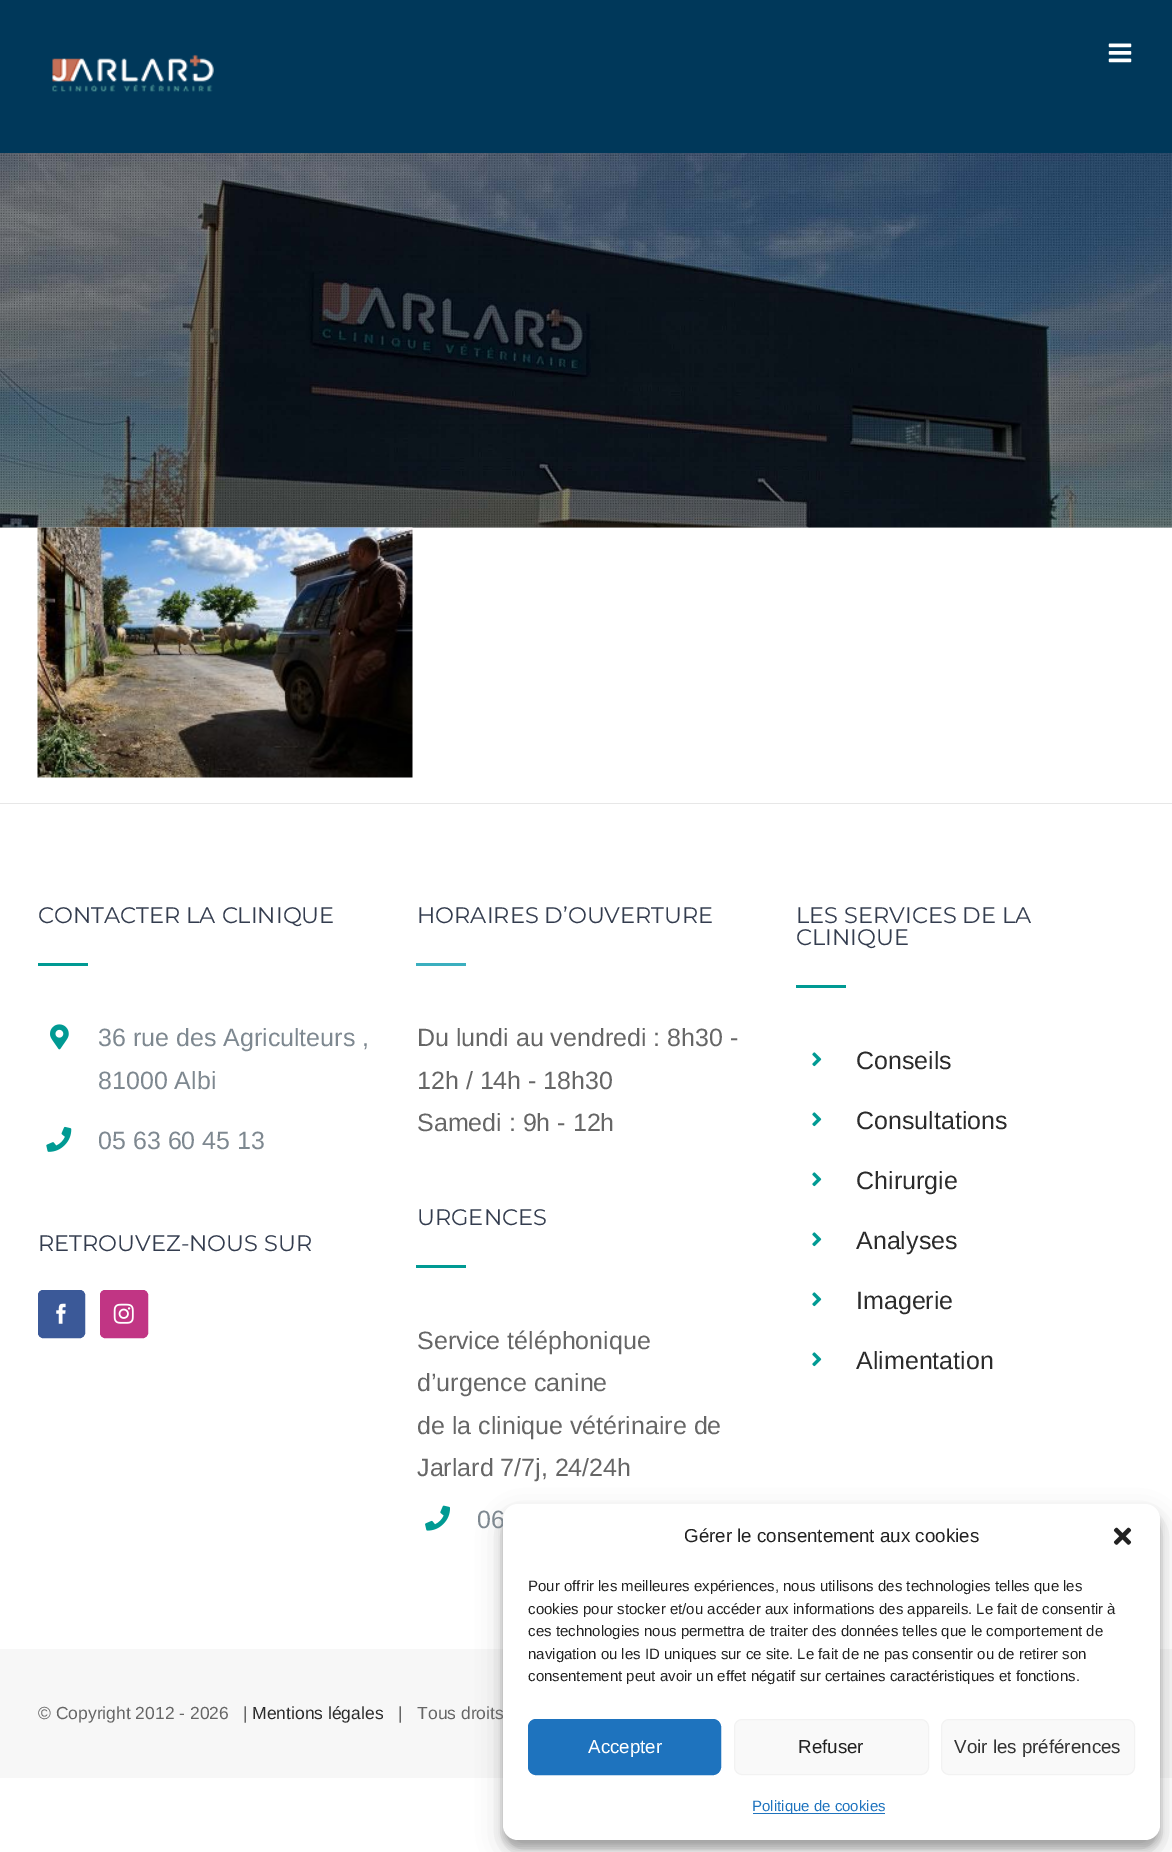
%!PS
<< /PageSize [1172 1852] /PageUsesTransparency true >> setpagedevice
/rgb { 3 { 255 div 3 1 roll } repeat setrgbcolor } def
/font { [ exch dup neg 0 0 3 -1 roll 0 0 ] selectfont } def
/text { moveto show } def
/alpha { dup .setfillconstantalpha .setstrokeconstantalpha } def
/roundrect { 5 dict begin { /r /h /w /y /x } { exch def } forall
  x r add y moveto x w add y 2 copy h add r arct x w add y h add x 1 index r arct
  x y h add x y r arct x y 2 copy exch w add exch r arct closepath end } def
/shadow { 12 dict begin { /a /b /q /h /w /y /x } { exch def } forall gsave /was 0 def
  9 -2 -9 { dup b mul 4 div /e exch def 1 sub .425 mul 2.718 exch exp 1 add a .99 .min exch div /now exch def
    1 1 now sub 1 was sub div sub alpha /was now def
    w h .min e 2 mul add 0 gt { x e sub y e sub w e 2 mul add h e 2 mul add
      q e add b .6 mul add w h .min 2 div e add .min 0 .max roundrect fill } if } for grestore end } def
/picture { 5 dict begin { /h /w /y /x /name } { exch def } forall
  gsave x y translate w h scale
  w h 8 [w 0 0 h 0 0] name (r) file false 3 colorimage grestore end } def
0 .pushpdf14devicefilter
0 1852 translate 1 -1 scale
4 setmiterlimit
255 255 255 rgb
0 0 1172 1852 rectfill
0 56 90 rgb
0 0 1172 153 rectfill
(img_01.rgb) 52 54 162 38 picture
(img_02.rgb) 1108 43 24 20 picture
221 221 221 rgb
0 527 1172 1 rectfill
(img_03.rgb) 0 153 1172 375 picture
(img_04.rgb) 37 527 376 251 picture
231 231 231 rgb
0 803 1172 1 rectfill
0 154 147 rgb
38 963 50 3 rectfill
(img_05.rgb) 50 1024 19 26 picture
(img_06.rgb) 46 1126 26 26 picture
59 89 152 rgb
38.5 1290.5 46 47 4.5 roundrect gsave fill grestore
stroke
(img_07.rgb) 56 1303 10 21 picture
193 53 132 rgb
100.5 1290.5 47 47 4.5 roundrect gsave fill grestore
stroke
(img_08.rgb) 113 1303 21 21 picture
59 175 191 rgb
416 963 50 3 rectfill
0 154 147 rgb
416 1265 50 3 rectfill
(img_09.rgb) 425 1505 25 26 picture
796 985 50 3 rectfill
(img_10.rgb) 812 1052 10 15 picture
(img_10.rgb) 812 1112 10 15 picture
(img_10.rgb) 812 1172 10 15 picture
(img_10.rgb) 812 1232 10 15 picture
(img_10.rgb) 812 1292 10 15 picture
(img_10.rgb) 812 1352 10 15 picture
247 247 247 rgb
0 1649 1172 129 rectfill
0 0 0 rgb
503 1511 657 337 15 4 0.23 shadow
503 1516 657 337 15 12.5 0.19 shadow
/Montserrat-Regular 22.5 font
51 60 78 rgb
(CONTACTER LA CLINIQUE) 38 923 text
/LiberationSans-Regular 25 font
126 136 144 rgb
(36 rue des Agriculteurs ,) 98 1046 text
(81000 Albi) 98 1089 text
(05 63 60 45 13) 98 1149 text
/Montserrat-Regular 22.5 font
51 60 78 rgb
(RETROUVEZ-NOUS SUR) 38 1251 text
(HORAIRES D’OUVERTURE) 417 923 text
/LiberationSans-Regular 25 font
102 102 102 rgb
(Du lundi au vendredi : 8h30 -) 417 1046 text
(12h / 14h - 18h30) 417 1089 text
(Samedi : 9h - 12h) 417 1131 text
/Montserrat-Regular 22.5 font
51 60 78 rgb
(URGENCES) 417 1225 text
/LiberationSans-Regular 25 font
102 102 102 rgb
(Service téléphonique) 417 1349 text
(d’urgence canine) 417 1391 text
(de la clinique vétérinaire de) 417 1434 text
(Jarlard 7/7j, 24/24h) 417 1476 text
126 136 144 rgb
(06) 477 1528 text
/Montserrat-Regular 22.5 font
51 60 78 rgb
(LES SERVICES DE LA) 796 923 text
(CLINIQUE) 796 945 text
/LiberationSans-Regular 25 font
43 43 43 rgb
(Conseils) 856 1069 text
(Consultations) 856 1129 text
(Chirurgie) 856 1189 text
(Analyses) 856 1249 text
(Imagerie) 856 1309 text
(Alimentation) 856 1369 text
/LiberationSans-Regular 17.5 font
102 102 102 rgb
(© Copyright 2012 - 2026   |) 38 1719 text
43 43 43 rgb
(Mentions légales) 252 1719 text
102 102 102 rgb
(|   Tous droits) 398 1719 text
255 255 255 rgb
503 1504 657 336 15 roundrect fill
/LiberationSans-Regular 18.75 font
34 34 34 rgb
(Gérer le consentement aux cookies) 684 1542 text
(img_11.rgb) 1113 1527 19 18 picture
/LiberationSans-Regular 15 font
(Pour offrir les meilleures expériences, nous utilisons des technologies telles que les) 528 1591 text
(cookies pour stocker et/ou accéder aux informations des appareils. Le fait de consentir à) 528 1614 text
(ces technologies nous permettra de traiter des données telles que le comportement de) 528 1636 text
(navigation ou les ID uniques sur ce site. Le fait de ne pas consentir ou de retirer son) 528 1659 text
(consentement peut avoir un effet négatif sur certaines caractéristiques et fonctions.) 528 1681 text
30 115 190 rgb
528.5 1719.5 192 55 7.5 roundrect gsave fill grestore
stroke
/LiberationSans-Regular 18.75 font
255 255 255 rgb
(Accepter) 588 1753 text
249 249 249 rgb
734.5 1719.5 194 55 7.5 roundrect gsave fill grestore
242 242 242 rgb
stroke
34 34 34 rgb
(Refuser) 798 1753 text
249 249 249 rgb
941.5 1719.5 193 55 7.5 roundrect gsave fill grestore
242 242 242 rgb
stroke
51 51 51 rgb
(Voir les préférences) 954 1753 text
30 115 190 rgb
753 1813 132 1 rectfill
/LiberationSans-Regular 15 font
(Politique de cookies) 752 1811 text
.poppdf14devicefilter showpage
